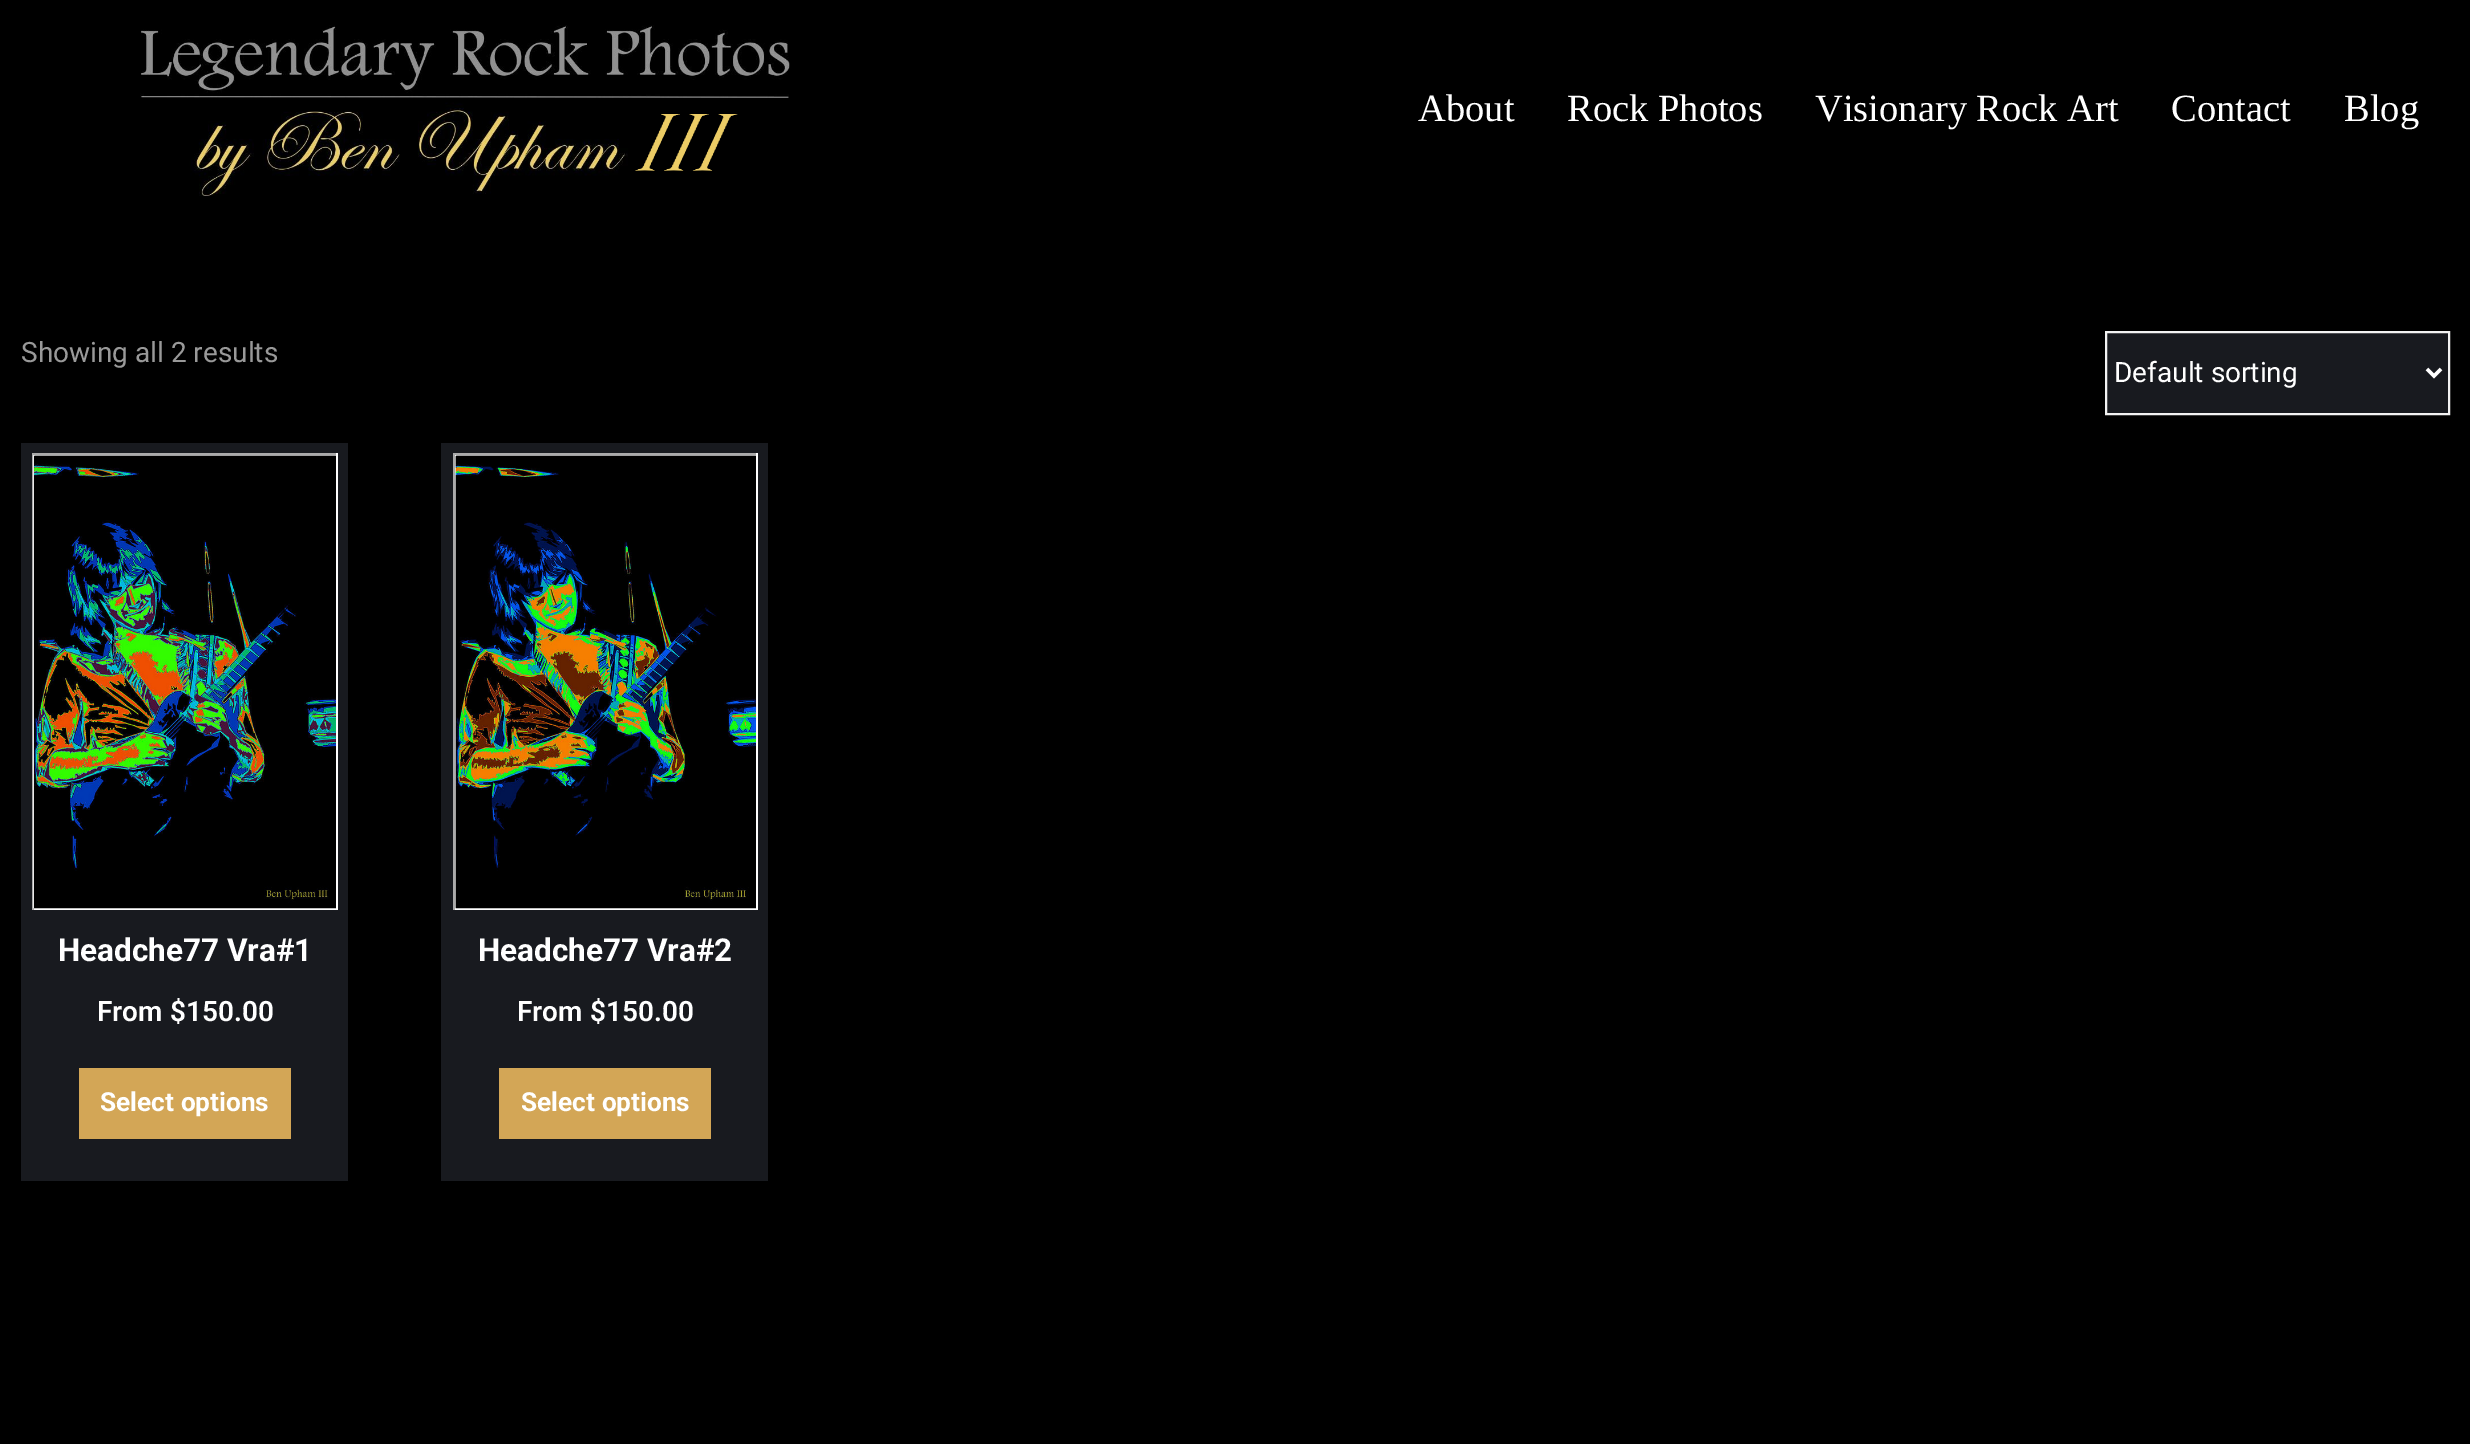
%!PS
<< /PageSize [2470 1444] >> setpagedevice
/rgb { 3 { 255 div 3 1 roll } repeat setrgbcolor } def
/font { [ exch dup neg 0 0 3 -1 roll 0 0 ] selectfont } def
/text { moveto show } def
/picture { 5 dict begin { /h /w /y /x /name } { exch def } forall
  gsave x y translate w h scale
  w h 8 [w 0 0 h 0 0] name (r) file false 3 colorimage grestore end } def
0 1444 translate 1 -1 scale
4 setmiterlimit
0 0 0 rgb
0 0 2470 1444 rectfill
(img_01.rgb) 140 25 650 171 picture
24 26 31 rgb
2106 332 moveto 343 0 rlineto 0 82 rlineto -343 0 rlineto closepath gsave fill grestore
243 243 243 rgb
2 setlinewidth
stroke
255 255 255 rgb
3.5 setlinewidth
2427 369 moveto 7 7 rlineto 7 -7 rlineto stroke
24 26 31 rgb
21 443 327 738 rectfill
170 170 170 rgb
32 453 306 2 rectfill
255 255 255 rgb
336 453 2 457 rectfill
32 908 306 2 rectfill
170 170 170 rgb
32 453 2 457 rectfill
(img_02.rgb) 33 455 303 454 picture
211 166 86 rgb
79 1068 212 71 rectfill
24 26 31 rgb
441 443 327 738 rectfill
170 170 170 rgb
453 453 305 2 rectfill
255 255 255 rgb
756 453 2 457 rectfill
453 908 305 2 rectfill
170 170 170 rgb
453 453 2 457 rectfill
(img_03.rgb) 455 455 301 454 picture
211 166 86 rgb
499 1068 212 71 rectfill
/LiberationSerif-Regular 38.5 font
255 255 255 rgb
(About) 1418 121 text
(Rock Photos) 1567 121 text
(Visionary Rock Art) 1815 121 text
(Contact) 2171 121 text
(Blog) 2344 121 text
/Roboto-Regular 28 font
153 153 153 rgb
(Showing all 2 results) 21 362 text
255 255 255 rgb
(Default sorting) 2114 382 text
/Roboto-Bold 31.5 font
(Headche77 Vra#1) 58 961 text
/Roboto-SemiBold 28 font
(From $150.00) 97 1021 text
/Roboto-Bold 26.25 font
(Select options) 100 1111 text
/Roboto-Bold 31.5 font
(Headche77 Vra#2) 478 961 text
/Roboto-SemiBold 28 font
(From $150.00) 517 1021 text
/Roboto-Bold 26.25 font
(Select options) 521 1111 text
showpage
